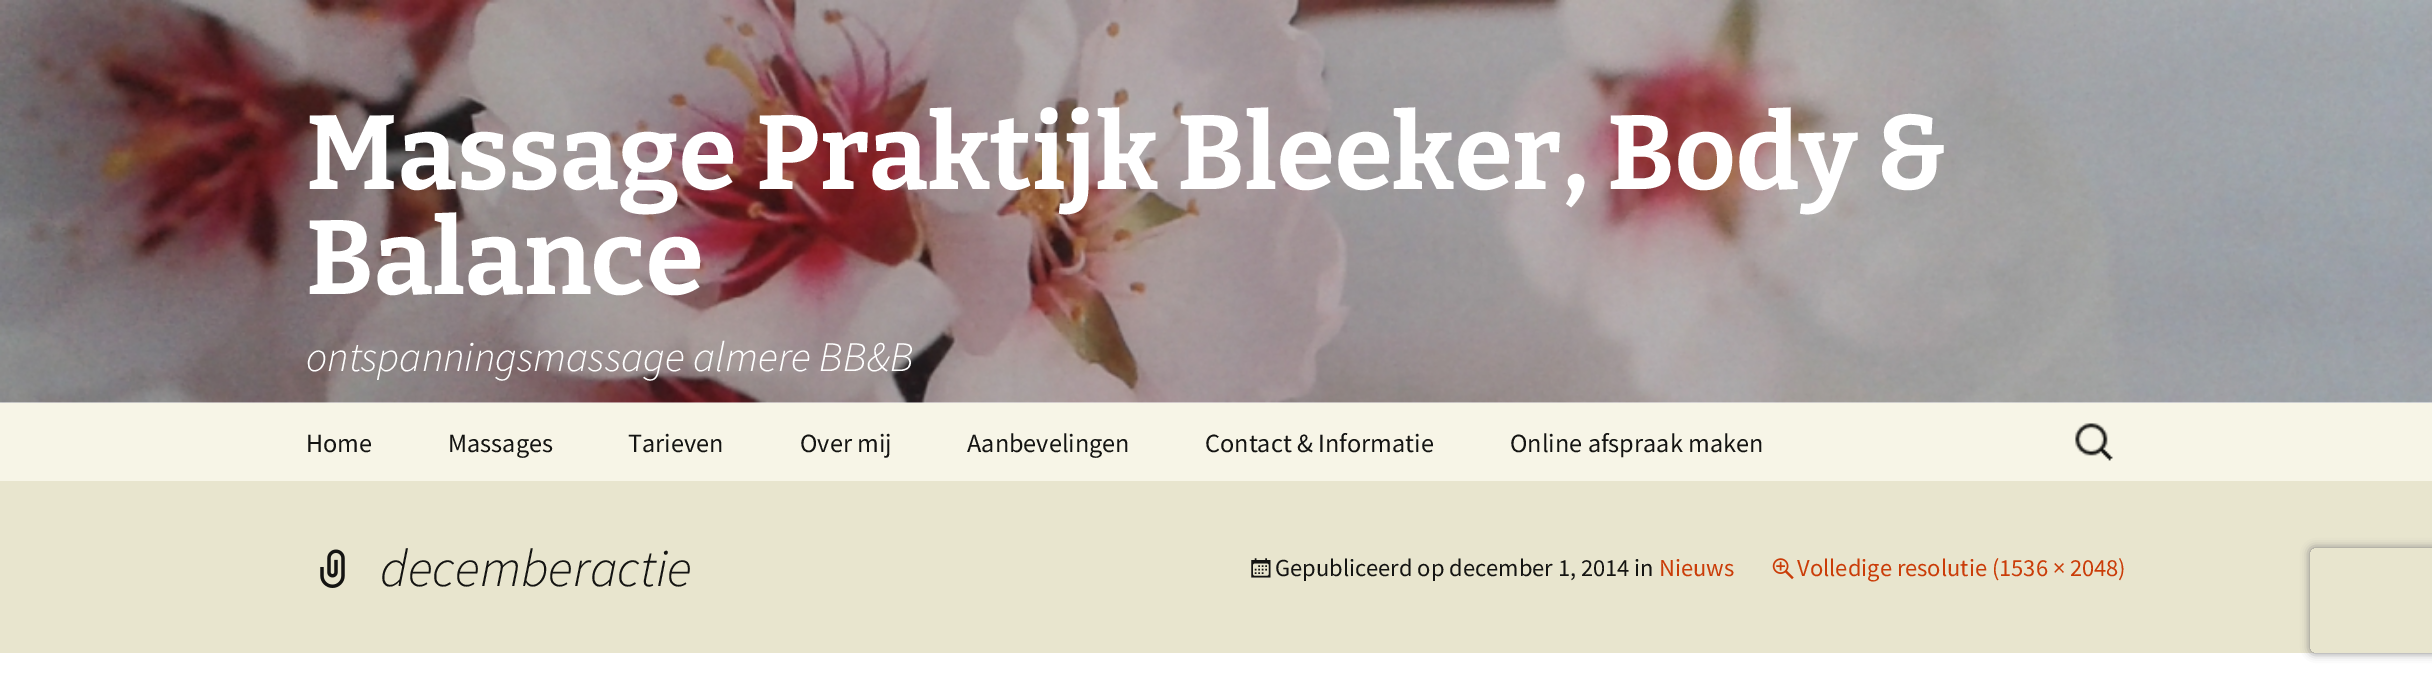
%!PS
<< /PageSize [2432 676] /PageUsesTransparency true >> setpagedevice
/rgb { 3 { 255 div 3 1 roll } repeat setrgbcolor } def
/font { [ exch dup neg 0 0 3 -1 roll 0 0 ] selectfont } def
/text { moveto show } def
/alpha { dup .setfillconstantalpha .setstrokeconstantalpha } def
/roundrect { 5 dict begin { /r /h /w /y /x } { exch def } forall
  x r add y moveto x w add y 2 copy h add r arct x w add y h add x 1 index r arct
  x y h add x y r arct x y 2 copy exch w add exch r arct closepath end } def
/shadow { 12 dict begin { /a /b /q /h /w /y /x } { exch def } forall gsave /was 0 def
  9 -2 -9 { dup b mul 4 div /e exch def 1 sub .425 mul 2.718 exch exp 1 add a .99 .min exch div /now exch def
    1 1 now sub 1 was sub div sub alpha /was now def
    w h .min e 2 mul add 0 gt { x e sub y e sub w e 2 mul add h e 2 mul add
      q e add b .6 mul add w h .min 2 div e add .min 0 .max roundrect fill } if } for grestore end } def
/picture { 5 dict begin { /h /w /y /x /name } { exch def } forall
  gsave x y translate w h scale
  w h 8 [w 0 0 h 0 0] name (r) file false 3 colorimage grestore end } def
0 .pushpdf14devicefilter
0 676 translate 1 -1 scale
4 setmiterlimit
255 255 255 rgb
0 0 2432 676 rectfill
(img_01.rgb) 0 0 2432 403 picture
247 245 231 rgb
0 403 2432 78 rectfill
(img_02.rgb) 2075 423 38 38 picture
232 229 206 rgb
0 481 2432 172 rectfill
(img_03.rgb) 320 549 25 39 picture
(img_04.rgb) 1251 558 20 20 picture
(img_05.rgb) 1772 558 22 22 picture
gsave
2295 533 moveto 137 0 rlineto 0 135 rlineto -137 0 rlineto closepath 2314 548 moveto 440 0 rlineto 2 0 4 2 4 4 rcurveto 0 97 rlineto 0 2 -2 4 -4 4 rcurveto -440 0 rlineto -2 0 -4 -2 -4 -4 rcurveto 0 -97 rlineto 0 -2 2 -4 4 -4 rcurveto closepath eoclip newpath
128 128 128 rgb
2310 548 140 105 4 4.5 1 shadow
grestore
/Bitter-Thin 105 font
255 255 255 rgb
(Massage Praktijk Bleeker, Body &) 306 189 text
(Balance) 306 294 text
/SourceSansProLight-LightItalic 42 font
(ontspanningsmassage almere BB&B) 306 371 text
/SourceSansPro-Regular 26.25 font
20 20 18 rgb
(Home) 306 452 text
(Massages) 448 452 text
(Tarieven) 628 452 text
(Over mij) 800 452 text
(Aanbevelingen) 967 452 text
(Contact & Informatie) 1205 452 text
(Online afspraak maken) 1510 452 text
/SourceSansProLight-LightItalic 52.5 font
(decemberactie) 380 586 text
/SourceSansPro-Regular 24.5 font
(Gepubliceerd op december 1, 2014 in) 1275 576 text
202 60 8 rgb
(Nieuws) 1659 576 text
(Volledige resolutie \(1536 × 2048\)) 1797 576 text
.poppdf14devicefilter showpage
